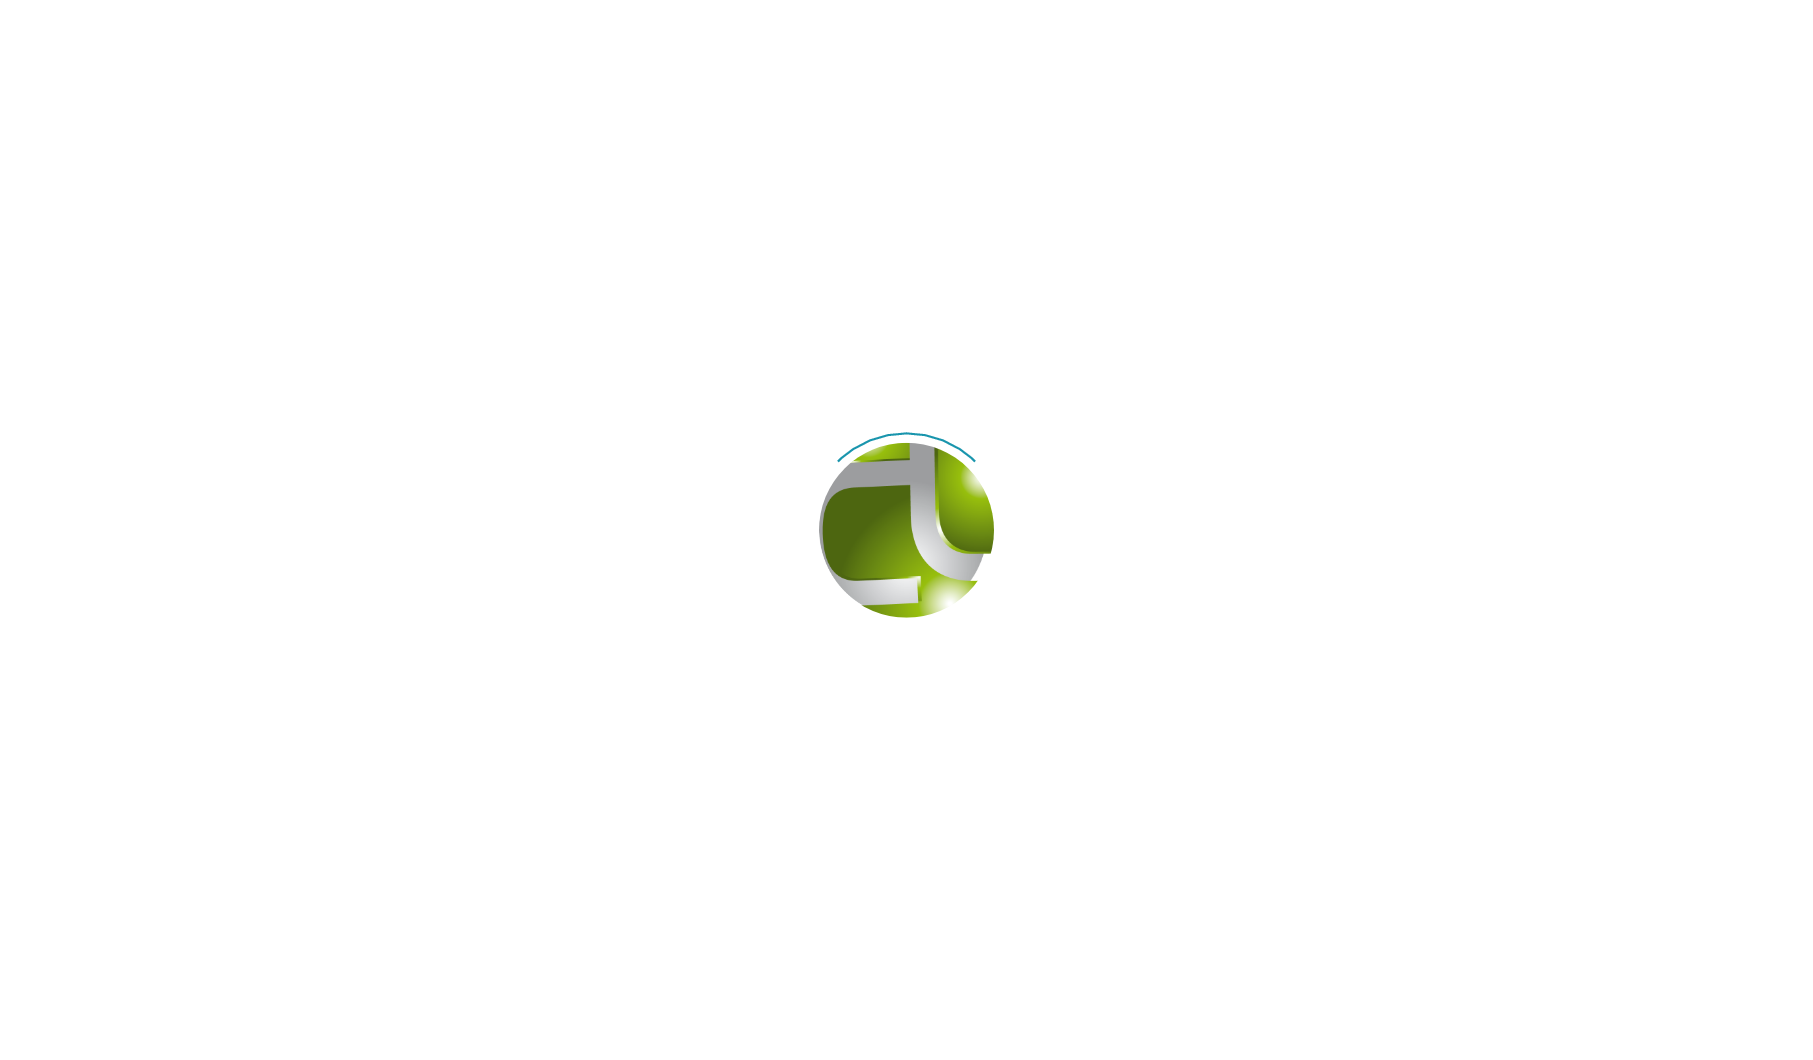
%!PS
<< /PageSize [1813 1060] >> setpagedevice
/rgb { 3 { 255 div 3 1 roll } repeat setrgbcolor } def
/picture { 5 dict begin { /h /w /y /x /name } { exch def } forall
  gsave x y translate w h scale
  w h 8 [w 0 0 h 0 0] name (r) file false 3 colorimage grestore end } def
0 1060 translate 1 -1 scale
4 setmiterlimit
255 255 255 rgb
0 0 1813 1060 rectfill
(img_01.rgb) 819 442 175 176 picture
25 149 173 rgb
1.8 setlinewidth
838 461.5 moveto 37.5 -37.5 99.5 -37.5 137 0 rcurveto stroke
showpage
